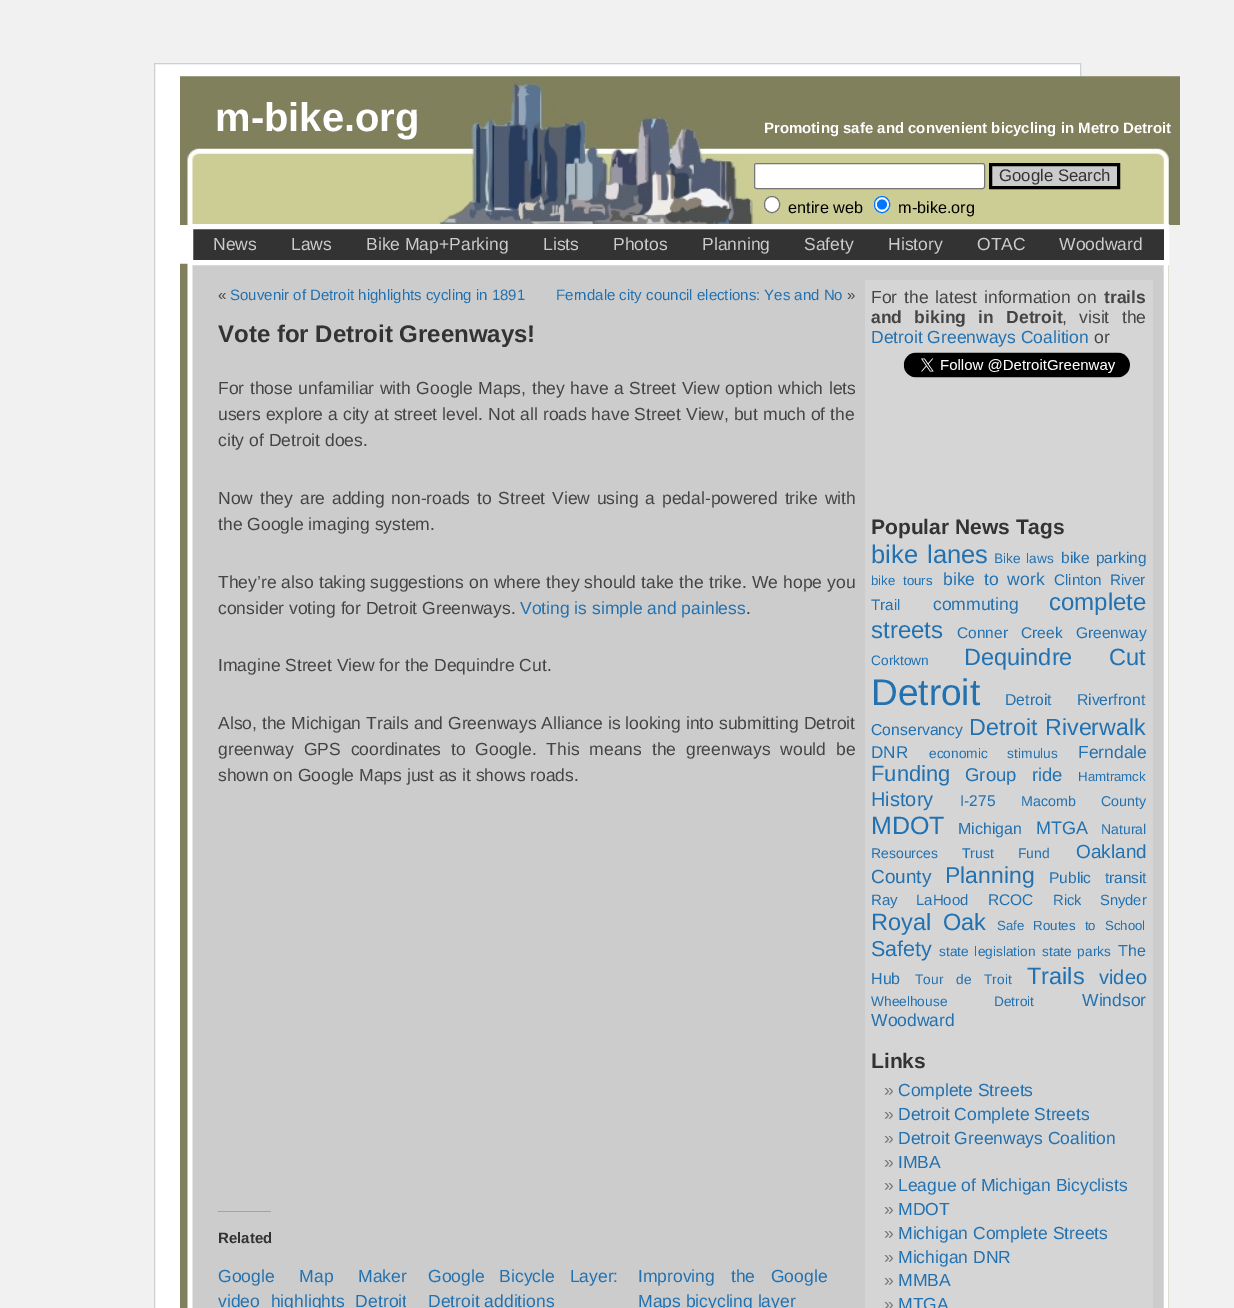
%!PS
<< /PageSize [1234 1308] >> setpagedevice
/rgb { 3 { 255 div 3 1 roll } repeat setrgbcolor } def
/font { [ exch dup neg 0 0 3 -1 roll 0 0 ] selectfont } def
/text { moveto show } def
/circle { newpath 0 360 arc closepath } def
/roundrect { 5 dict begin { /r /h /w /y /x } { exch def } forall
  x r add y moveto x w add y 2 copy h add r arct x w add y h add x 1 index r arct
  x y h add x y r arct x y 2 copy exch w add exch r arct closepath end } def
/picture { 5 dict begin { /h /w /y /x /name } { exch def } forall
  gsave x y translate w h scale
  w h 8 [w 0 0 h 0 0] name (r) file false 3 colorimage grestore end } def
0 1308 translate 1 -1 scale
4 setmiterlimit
241 241 241 rgb
0 0 1234 1308 rectfill
255 255 255 rgb
154.5 63.5 moveto 926 0 rlineto 0 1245 rlineto -926 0 rlineto closepath gsave fill grestore
204 208 212 rgb
stroke
(img_01.rgb) 180 76 1000 149 picture
255 255 255 rgb
754.5 163.5 230 25 2 roundrect gsave fill grestore
118 118 118 rgb
stroke
204 204 204 rgb
990.5 164.5 moveto 128 0 rlineto 0 23 rlineto -128 0 rlineto closepath gsave fill grestore
0 0 0 rgb
3 setlinewidth
stroke
255 255 255 rgb
764.5 196.5 15 16 7.5 roundrect gsave fill grestore
118 118 118 rgb
1 setlinewidth
stroke
255 255 255 rgb
874.5 196.5 15 16 7.5 roundrect gsave fill grestore
0 117 255 rgb
stroke
882 204.5 5 circle fill
(img_02.rgb) 180 263 989 1045 picture
51 51 51 rgb
190.5 226.5 moveto 976 0 rlineto 0 36 rlineto -976 0 rlineto closepath gsave fill grestore
255 255 255 rgb
5 setlinewidth
stroke
163 163 163 rgb
218 1211 53 1 rectfill
213 213 213 rgb
865 280 288 1028 rectfill
(img_03.rgb) 903 352 227 26 picture
/LiberationSans-Bold 40 font
255 255 255 rgb
(m-bike.org) 215 131 text
/LiberationSans-Bold 15 font
(Promoting safe and convenient bicycling in Metro Detroit) 764 133 text
/LiberationSans-Regular 16.75 font
51 51 51 rgb
(Google Search) 999 181 text
/LiberationSans-Regular 16.25 font
0 0 0 rgb
(entire web) 788 213 text
(m-bike.org) 898 213 text
/LiberationSans-Regular 17.5 font
204 204 204 rgb
(News) 213 250 text
(Laws) 291 250 text
(Bike Map+Parking) 366 250 text
(Lists) 543 250 text
(Photos) 613 250 text
(Planning) 702 250 text
(Safety) 804 250 text
(History) 888 250 text
(OTAC) 977 250 text
(Woodward) 1059 250 text
/LiberationSans-Regular 15 font
68 68 68 rgb
(«) 218 300 text
34 113 177 rgb
(Souvenir of Detroit highlights cycling in 1891) 230 300 text
(Ferndale city council elections: Yes and No) 556 300 text
68 68 68 rgb
(») 847 300 text
/LiberationSans-Bold 24 font
51 51 51 rgb
(Vote for Detroit Greenways!) 218 342 text
/LiberationSans-Regular 17.5 font
68 68 68 rgb
218 394 moveto 0.75 0 32 (For those unfamiliar with Google Maps, they have a Street View option which lets) widthshow
218 420 moveto 0.1 0 32 (users explore a city at street level. Not all roads have Street View, but much of the) widthshow
(city of Detroit does.) 218 446 text
218 504 moveto 2 0 32 (Now they are adding non-roads to Street View using a pedal-powered trike with) widthshow
(the Google imaging system.) 218 530 text
218 588 moveto 0.25 0 32 (They’re also taking suggestions on where they should take the trike. We hope you) widthshow
(consider voting for Detroit Greenways.) 218 614 text
34 113 177 rgb
(Voting is simple and painless) 520 614 text
68 68 68 rgb
(.) 746 614 text
(Imagine Street View for the Dequindre Cut.) 218 671 text
218 729 moveto 0.1 0 32 (Also, the Michigan Trails and Greenways Alliance is looking into submitting Detroit) widthshow
218 755 moveto 5 0 32 (greenway GPS coordinates to Google. This means the greenways would be) widthshow
(shown on Google Maps just as it shows roads.) 218 781 text
/LiberationSans-Bold 15 font
51 51 51 rgb
(Related) 218 1243 text
/LiberationSans-Regular 17.5 font
34 113 177 rgb
218 1282 moveto 20 0 32 (Google Map Maker) widthshow
gsave
218 1264 188 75 rectclip
218 1307 moveto 6 0 32 (video highlights Detroit) widthshow
grestore
428 1282 moveto 10 0 32 (Google Bicycle Layer:) widthshow
(Detroit additions) 428 1307 text
638 1282 moveto 11 0 32 (Improving the Google) widthshow
(Maps bicycling layer) 638 1307 text
68 68 68 rgb
871 303 moveto 2 0 32 (For the latest information on) widthshow
/LiberationSans-Bold 17.5 font
(trails) 1104 303 text
871 323 moveto 7.5 0 32 (and biking in Detroit) widthshow
/LiberationSans-Regular 17.5 font
1062 323 moveto 7.5 0 32 (, visit the) widthshow
34 113 177 rgb
(Detroit Greenways Coalition) 871 343 text
68 68 68 rgb
(or) 1094 343 text
/LiberationSans-Bold 21 font
51 51 51 rgb
(Popular News Tags) 871 534 text
/LiberationSans-Regular 25.5 font
34 113 177 rgb
871 563 moveto 2 0 32 (bike lanes) widthshow
/LiberationSans-Regular 13.7 font
994 563 moveto 2 0 32 (Bike laws) widthshow
/LiberationSans-Regular 15.5 font
1061 563 moveto 2 0 32 (bike parking) widthshow
/LiberationSans-Regular 13.25 font
871 585 moveto 4 0 32 (bike tours) widthshow
/LiberationSans-Regular 17.5 font
943 585 moveto 4 0 32 (bike to work) widthshow
/LiberationSans-Regular 15.25 font
1054 585 moveto 4 0 32 (Clinton River) widthshow
(Trail) 871 610 text
/LiberationSans-Regular 17.5 font
(commuting) 933 610 text
/LiberationSans-Regular 24 font
(complete) 1049 610 text
(streets) 871 638 text
/LiberationSans-Regular 15.5 font
957 638 moveto 9 0 32 (Conner Creek Greenway) widthshow
/LiberationSans-Regular 13.7 font
(Corktown) 871 665 text
/LiberationSans-Regular 23.5 font
964 665 moveto 30 0 32 (Dequindre Cut) widthshow
/LiberationSans-Regular 37 font
(Detroit) 871 705 text
/LiberationSans-Regular 15.75 font
1005 705 moveto 21 0 32 (Detroit Riverfront) widthshow
(Conservancy) 871 735 text
/LiberationSans-Regular 23.25 font
969 735 moveto 1 0 32 (Detroit Riverwalk) widthshow
/LiberationSans-Regular 17 font
(DNR) 871 758 text
/LiberationSans-Regular 13.7 font
929 758 moveto 16 0 32 (economic stimulus) widthshow
/LiberationSans-Regular 17.5 font
(Ferndale) 1078 758 text
/LiberationSans-Regular 22 font
(Funding) 871 781 text
/LiberationSans-Regular 18.5 font
965 781 moveto 10 0 32 (Group ride) widthshow
/LiberationSans-Regular 13.25 font
(Hamtramck) 1078 781 text
/LiberationSans-Regular 20 font
(History) 871 806 text
/LiberationSans-Regular 15.5 font
(I-275) 960 806 text
/LiberationSans-Regular 14.25 font
1021 806 moveto 21 0 32 (Macomb County) widthshow
/LiberationSans-Regular 25 font
(MDOT) 871 834 text
/LiberationSans-Regular 16 font
(Michigan) 958 834 text
/LiberationSans-Regular 18 font
(MTGA) 1036 834 text
/LiberationSans-Regular 14 font
(Natural) 1101 834 text
871 858 moveto 20 0 32 (Resources Trust Fund) widthshow
/LiberationSans-Regular 19 font
(Oakland) 1076 858 text
(County) 871 883 text
/LiberationSans-Regular 23 font
(Planning) 945 883 text
/LiberationSans-Regular 15.5 font
1049 883 moveto 9 0 32 (Public transit) widthshow
/LiberationSans-Regular 15 font
871 905 moveto 14 0 32 (Ray LaHood) widthshow
/LiberationSans-Regular 15.5 font
(RCOC) 988 905 text
/LiberationSans-Regular 14.75 font
1053 905 moveto 14 0 32 (Rick Snyder) widthshow
/LiberationSans-Regular 23.5 font
871 930 moveto 5 0 32 (Royal Oak) widthshow
/LiberationSans-Regular 13.25 font
997 930 moveto 5.5 0 32 (Safe Routes to School) widthshow
/LiberationSans-Regular 21.5 font
(Safety) 871 956 text
/LiberationSans-Regular 13.7 font
939 956 moveto 2 0 32 (state legislation) widthshow
1042 956 moveto 2 0 32 (state parks) widthshow
/LiberationSans-Regular 16 font
(The) 1118 956 text
(Hub) 871 984 text
/LiberationSans-Regular 13.7 font
915 984 moveto 9 0 32 (Tour de Troit) widthshow
/LiberationSans-Regular 23.5 font
(Trails) 1027 984 text
/LiberationSans-Regular 20 font
(video) 1099 984 text
/LiberationSans-Regular 13.7 font
871 1006 moveto 43 0 32 (Wheelhouse Detroit) widthshow
/LiberationSans-Regular 17.5 font
(Windsor) 1082 1006 text
(Woodward) 871 1026 text
/LiberationSans-Bold 21 font
51 51 51 rgb
(Links) 871 1068 text
/LiberationSans-Regular 17.5 font
119 119 119 rgb
(») 884 1096 text
34 113 177 rgb
(Complete Streets) 898 1096 text
119 119 119 rgb
(») 884 1120 text
34 113 177 rgb
(Detroit Complete Streets) 898 1120 text
119 119 119 rgb
(») 884 1144 text
34 113 177 rgb
(Detroit Greenways Coalition) 898 1144 text
119 119 119 rgb
(») 884 1168 text
34 113 177 rgb
(IMBA) 898 1168 text
119 119 119 rgb
(») 884 1191 text
34 113 177 rgb
(League of Michigan Bicyclists) 898 1191 text
119 119 119 rgb
(») 884 1215 text
34 113 177 rgb
(MDOT) 898 1215 text
119 119 119 rgb
(») 884 1239 text
34 113 177 rgb
(Michigan Complete Streets) 898 1239 text
119 119 119 rgb
(») 884 1263 text
34 113 177 rgb
(Michigan DNR) 898 1263 text
119 119 119 rgb
(») 884 1286 text
34 113 177 rgb
(MMBA) 898 1286 text
119 119 119 rgb
(») 884 1310 text
34 113 177 rgb
(MTGA) 898 1310 text
showpage
